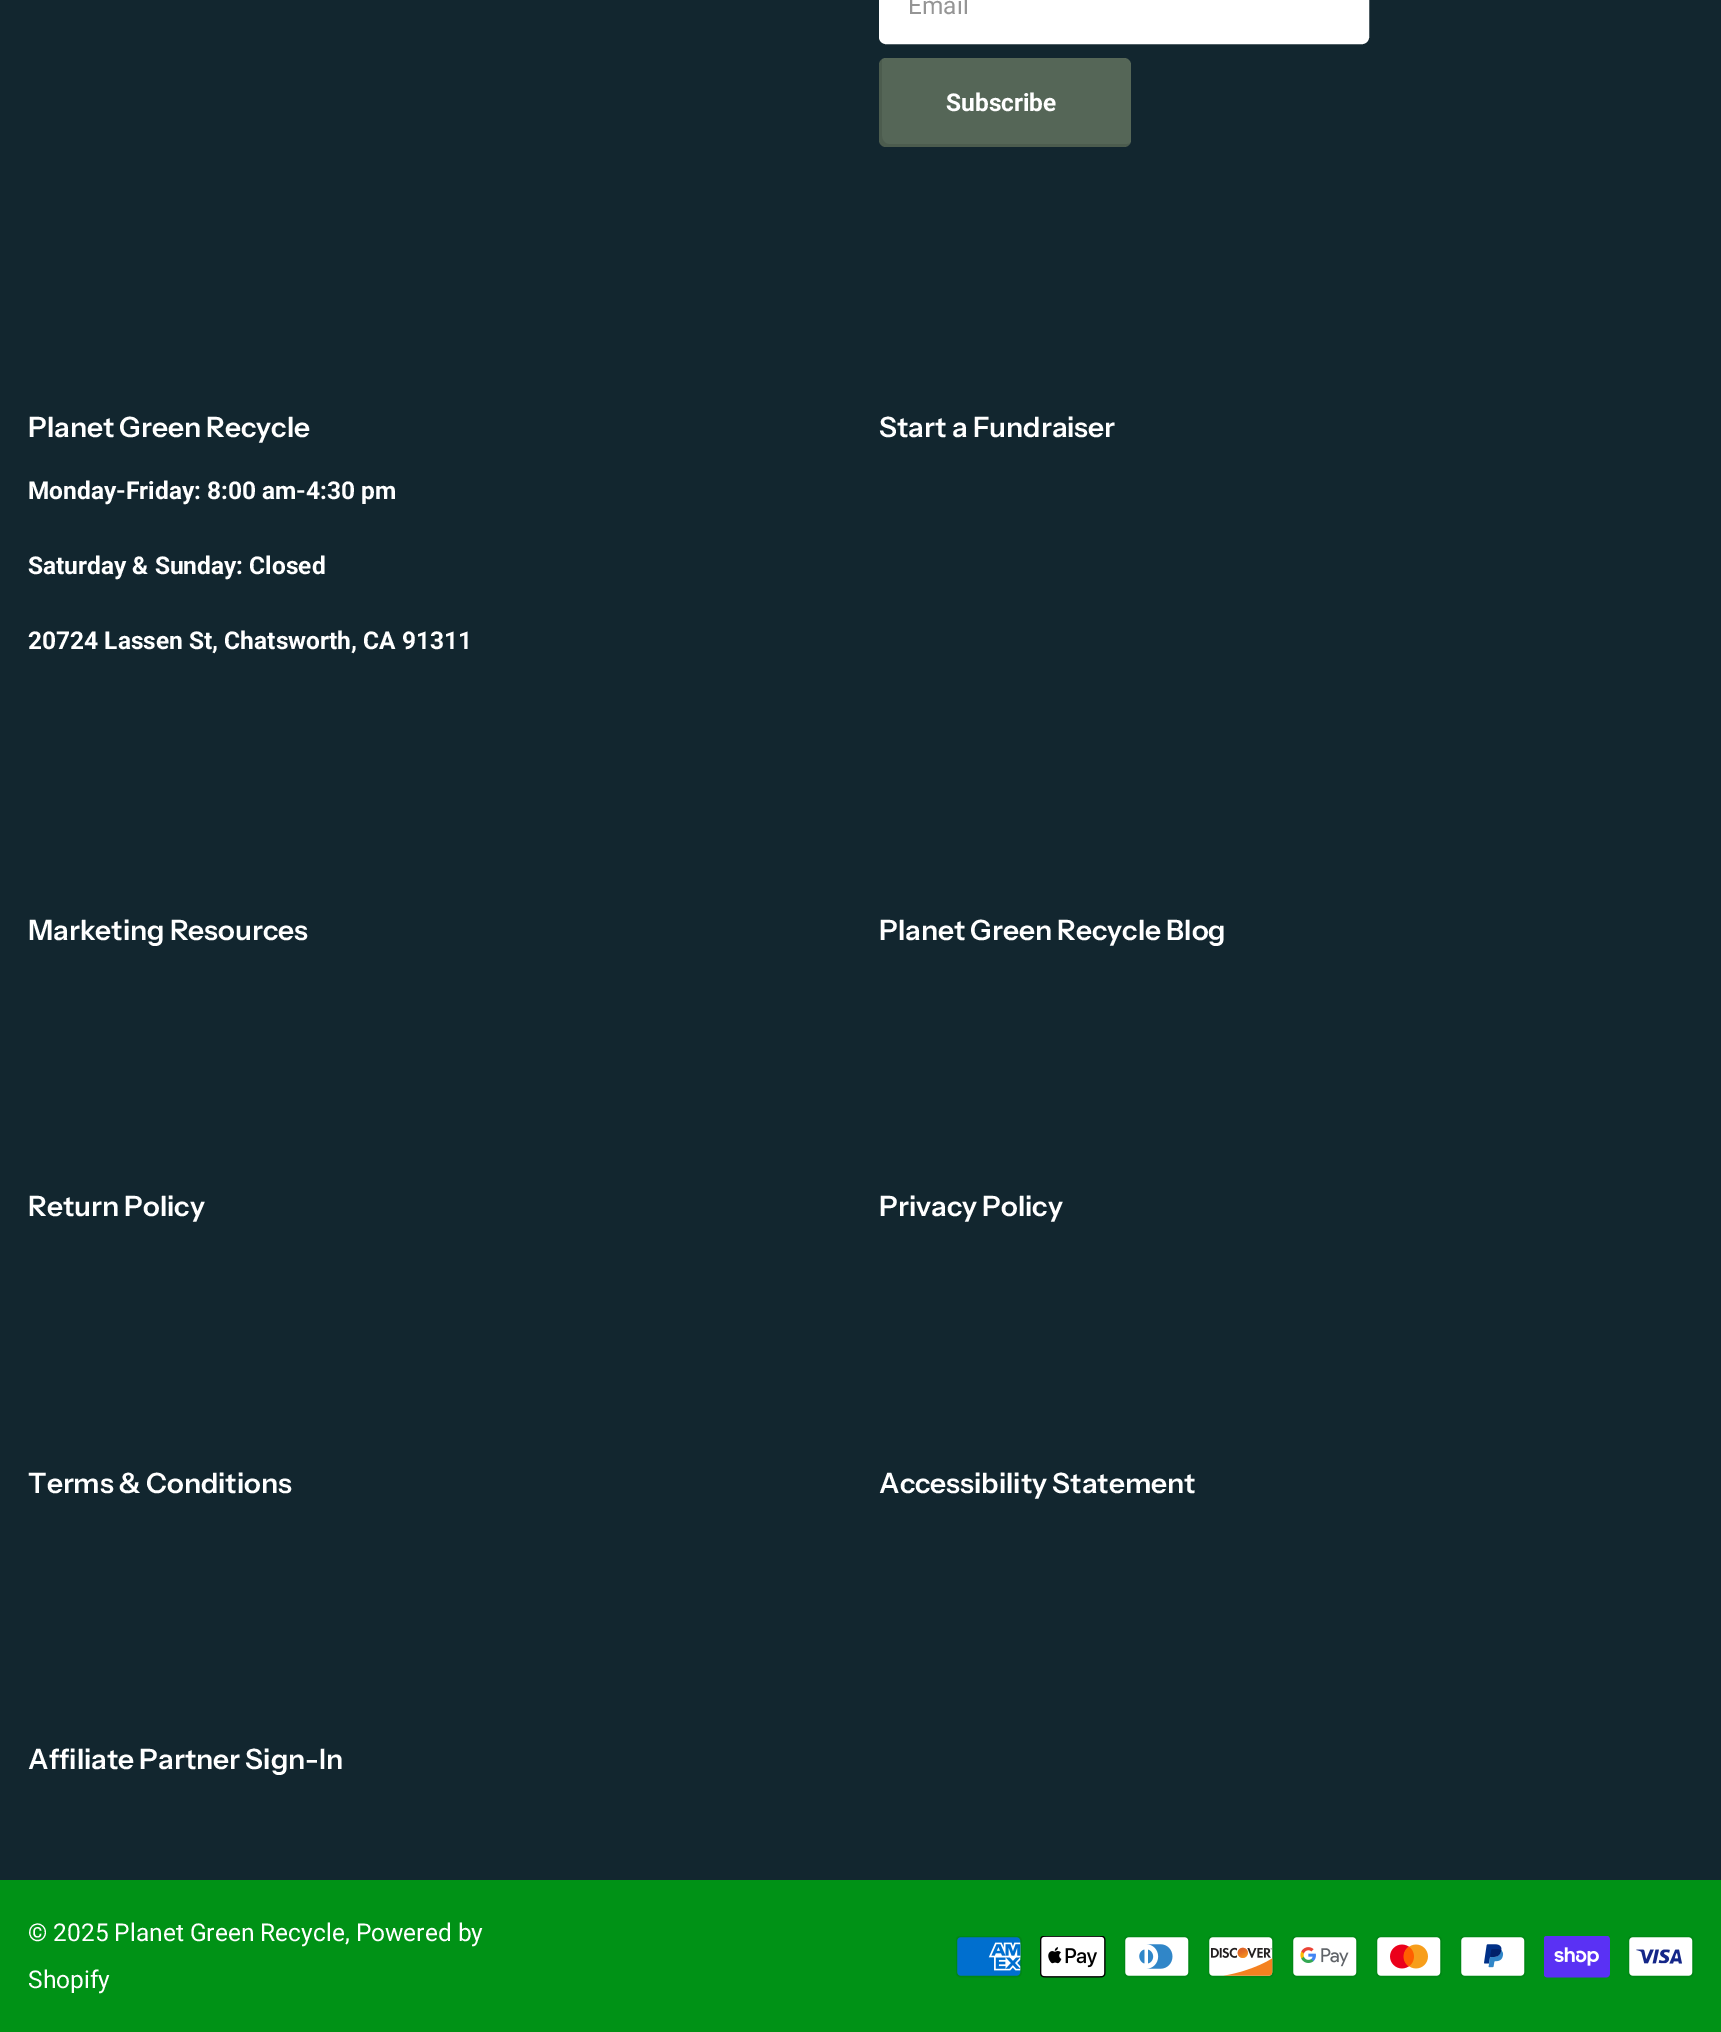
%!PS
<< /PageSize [1721 2032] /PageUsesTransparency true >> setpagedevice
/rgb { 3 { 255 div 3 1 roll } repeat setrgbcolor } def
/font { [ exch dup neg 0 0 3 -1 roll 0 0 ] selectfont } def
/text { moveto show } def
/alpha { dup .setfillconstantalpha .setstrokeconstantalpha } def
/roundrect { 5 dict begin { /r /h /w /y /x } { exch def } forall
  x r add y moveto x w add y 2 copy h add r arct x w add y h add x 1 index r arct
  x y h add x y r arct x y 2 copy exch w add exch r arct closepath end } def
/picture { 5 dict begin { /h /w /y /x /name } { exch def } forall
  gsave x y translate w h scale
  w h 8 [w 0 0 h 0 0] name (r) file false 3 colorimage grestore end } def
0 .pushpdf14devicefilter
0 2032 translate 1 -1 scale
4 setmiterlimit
18 38 47 rgb
0 0 1721 2032 rectfill
255 255 255 rgb
880 -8 488 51 6 roundrect gsave fill grestore
2 setlinewidth
stroke
85 102 87 rgb
879 58 252 89 7 roundrect fill
0.1 alpha
0 0 0 rgb
882 59 moveto -2 1 -3 4 -3 6 rcurveto 0 75 rlineto 0 4 3 7 7 7 rcurveto 238 0 rlineto 3 0 5 -2 6 -4 rcurveto -1 1 -2 1 -3 1 rcurveto -238 0 rlineto -4 0 -7 -4 -7 -8 rcurveto closepath fill
1 alpha
0 146 22 rgb
0 1880 1721 152 rectfill
(img_01.rgb) 956 1936 66 42 picture
(img_02.rgb) 1040 1936 66 42 picture
(img_03.rgb) 1124 1936 66 42 picture
(img_04.rgb) 1208 1936 66 42 picture
(img_05.rgb) 1292 1936 66 42 picture
(img_06.rgb) 1376 1936 66 42 picture
(img_07.rgb) 1460 1936 66 42 picture
(img_08.rgb) 1544 1936 66 42 picture
(img_09.rgb) 1628 1936 66 42 picture
/Roboto-Regular 24.5 font
149 149 149 rgb
(Email) 908 14 text
/Roboto-Bold 24.5 font
255 255 255 rgb
(Subscribe) 946 111 text
/InstrumentSans-SemiBold 28 font
(Planet Green Recycle) 28 437 text
/Roboto-Bold 24.5 font
(Monday-Friday: 8:00 am-4:30 pm) 28 499 text
(Saturday & Sunday: Closed) 28 574 text
(20724 Lassen St, Chatsworth, CA 91311) 28 649 text
/InstrumentSans-SemiBold 28 font
(Start a Fundraiser) 879 437 text
(Marketing Resources) 28 940 text
(Planet Green Recycle Blog) 879 940 text
(Return Policy) 28 1216 text
(Privacy Policy) 879 1216 text
(Terms & Conditions) 28 1493 text
(Accessibility Statement) 879 1493 text
(Affiliate Partner Sign-In) 28 1769 text
/Roboto-Regular 24.5 font
(© 2025 Planet Green Recycle, Powered by) 28 1941 text
(Shopify) 28 1988 text
.poppdf14devicefilter showpage
